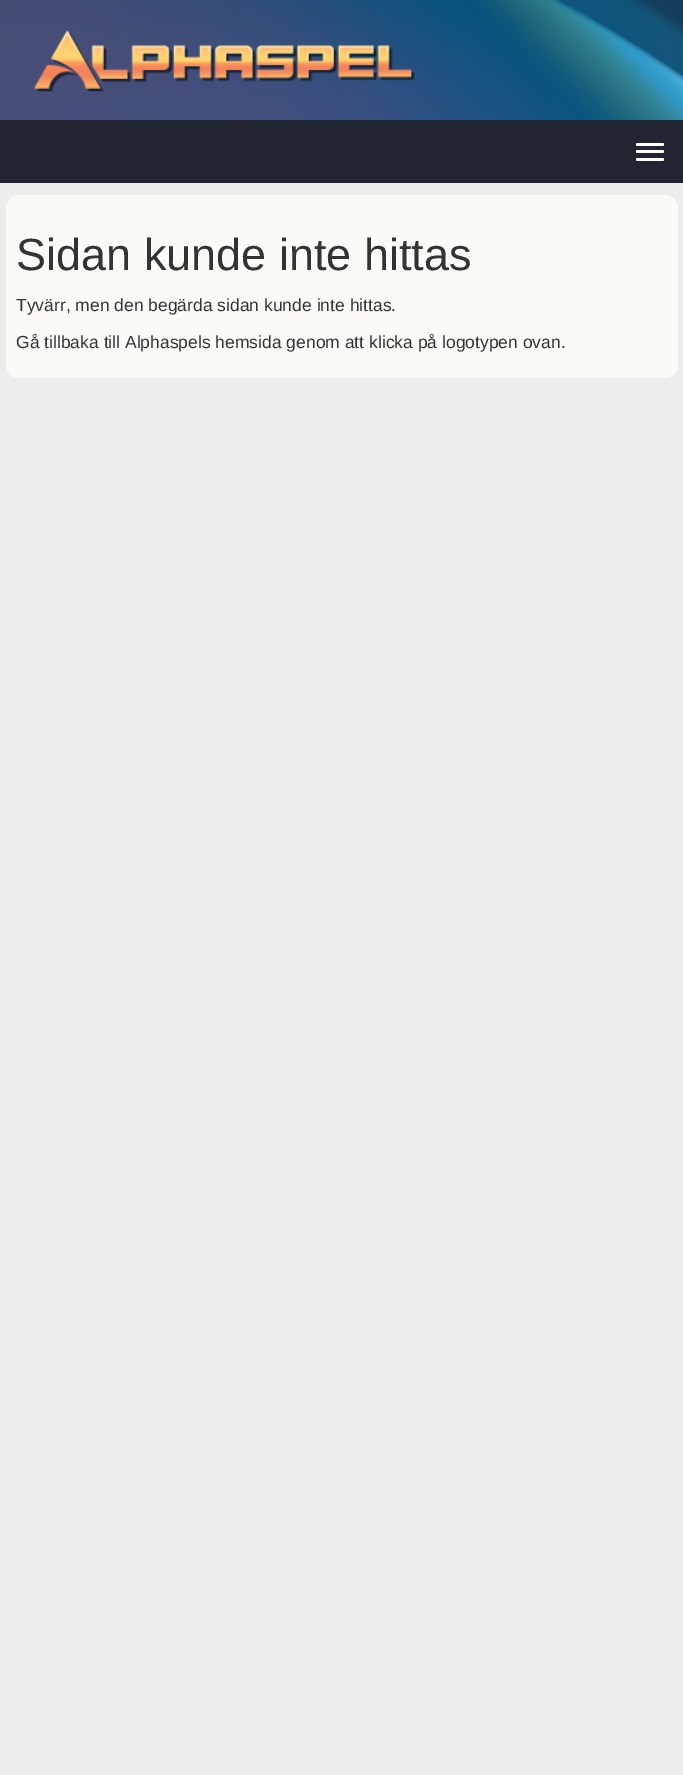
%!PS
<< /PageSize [683 1775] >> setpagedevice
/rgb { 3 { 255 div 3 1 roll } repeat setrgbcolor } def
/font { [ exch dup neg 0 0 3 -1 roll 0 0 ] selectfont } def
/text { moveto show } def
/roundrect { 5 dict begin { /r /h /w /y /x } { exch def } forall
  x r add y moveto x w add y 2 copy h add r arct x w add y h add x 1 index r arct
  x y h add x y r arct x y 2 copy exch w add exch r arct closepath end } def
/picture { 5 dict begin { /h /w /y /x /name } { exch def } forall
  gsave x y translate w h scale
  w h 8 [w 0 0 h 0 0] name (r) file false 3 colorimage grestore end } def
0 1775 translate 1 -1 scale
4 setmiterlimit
238 236 237 rgb
0 0 683 1775 rectfill
(img_01.rgb) 0 0 683 120 picture
(img_02.rgb) 33 30 382 62 picture
33 37 49 rgb
0 120 683 63 rectfill
255 255 255 rgb
636 143 28 3 1.5 roundrect fill
636 150 28 3 1.5 roundrect fill
636 158 28 3 1.5 roundrect fill
251 250 247 rgb
6 195 672 183 13 roundrect fill
/LiberationSans-Regular 45 font
51 51 51 rgb
(Sidan kunde inte hittas) 16 270 text
/LiberationSans-Regular 17.5 font
(Tyvärr, men den begärda sidan kunde inte hittas.) 16 311 text
(Gå tillbaka till Alphaspels hemsida genom att klicka på logotypen ovan.) 16 348 text
showpage
